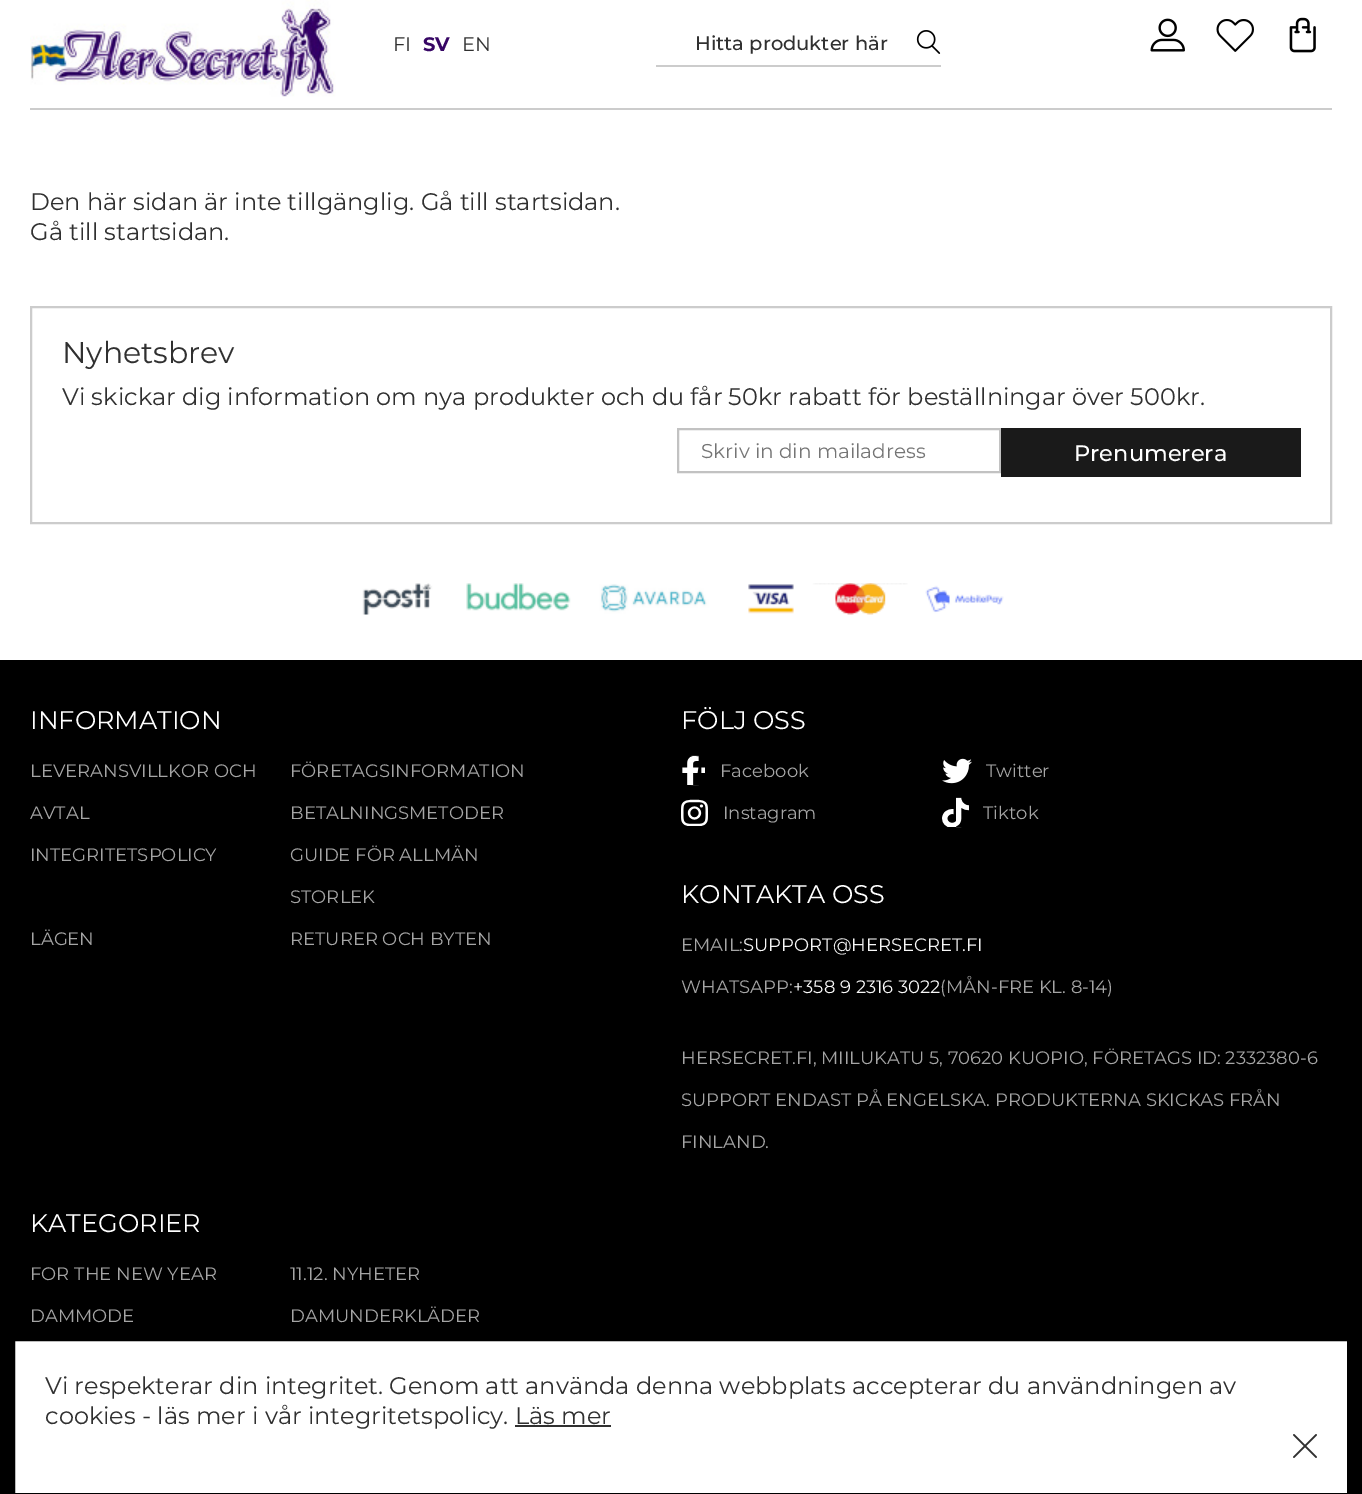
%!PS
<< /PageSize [1362 1494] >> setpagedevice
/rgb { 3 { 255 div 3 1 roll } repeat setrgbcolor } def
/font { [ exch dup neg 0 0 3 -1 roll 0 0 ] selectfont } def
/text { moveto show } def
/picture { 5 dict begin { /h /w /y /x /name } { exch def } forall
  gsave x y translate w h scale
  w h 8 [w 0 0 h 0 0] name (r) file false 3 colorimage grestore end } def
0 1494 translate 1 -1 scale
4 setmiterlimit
255 255 255 rgb
0 0 1362 1494 rectfill
204 204 204 rgb
30 108 1302 2 rectfill
(img_01.rgb) 30 0 306 97 picture
656 65 285 2 rectfill
(img_02.rgb) 916 30 25 24 picture
(img_03.rgb) 1150 18 35 34 picture
(img_04.rgb) 1216 19 38 33 picture
(img_05.rgb) 1289 17 27 36 picture
2 setlinewidth
31 307 1300 216 rectstroke
194 194 194 rgb
678 429 322 43 rectstroke
26 26 26 rgb
1001 428 300 49 rectfill
(img_06.rgb) 362 583 642 32 picture
0 0 0 rgb
0 660 1362 666 rectfill
(img_07.rgb) 682 755 23 31 picture
(img_08.rgb) 942 758 30 26 picture
(img_09.rgb) 681 799 27 27 picture
(img_10.rgb) 942 797 27 31 picture
15 setlinewidth
7.5 1333.5 1347 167 rectstroke
48 48 48 rgb
515 1425 96 2 rectfill
(img_11.rgb) 1293 1434 24 24 picture
/Montserrat-Regular 19.5 font
(FI) 393 51 text
/Montserrat-Bold 19.5 font
55 6 101 rgb
(SV) 423 51 text
/Montserrat-Regular 19.5 font
48 48 48 rgb
(EN) 462 51 text
/Montserrat-Medium 19.5 font
(Hitta produkter här) 695 50 text
/Montserrat-Regular 24 font
(Den här sidan är inte tillgänglig. Gå till startsidan.) 30 210 text
(Gå till startsidan.) 30 240 text
/Montserrat-Regular 30 font
(Nyhetsbrev) 62 363 text
/Montserrat-Regular 24 font
(Vi skickar dig information om nya produkter och du får 50kr rabatt för beställningar över 500kr.) 62 405 text
/Montserrat-Regular 20 font
117 117 117 rgb
(Skriv in din mailadress) 701 458 text
/Montserrat-Medium 22.5 font
255 255 255 rgb
(Prenumerera) 1074 461 text
/Montserrat-Regular 25.5 font
(INFORMATION) 30 729 text
/Montserrat-Regular 18 font
165 165 165 rgb
(LEVERANSVILLKOR OCH) 30 777 text
(AVTAL) 30 819 text
(FÖRETAGSINFORMATION) 290 777 text
(BETALNINGSMETODER) 290 819 text
(INTEGRITETSPOLICY) 30 861 text
(GUIDE FÖR ALLMÄN) 290 861 text
(STORLEK) 290 903 text
(LÄGEN) 30 945 text
(RETURER OCH BYTEN) 290 945 text
/Montserrat-Regular 25.5 font
255 255 255 rgb
(FÖLJ OSS) 681 729 text
/Montserrat-Regular 18 font
165 165 165 rgb
(Facebook) 720 777 text
(Twitter) 986 777 text
(Instagram) 723 819 text
(Tiktok) 983 819 text
/Montserrat-Regular 25.5 font
255 255 255 rgb
(KONTAKTA OSS) 681 903 text
/Montserrat-Regular 18 font
165 165 165 rgb
(EMAIL:) 681 951 text
247 247 247 rgb
(SUPPORT@HERSECRET.FI) 743 951 text
165 165 165 rgb
(WHATSAPP:) 681 993 text
247 247 247 rgb
(+358 9 2316 3022) 793 993 text
165 165 165 rgb
(\(MÅN-FRE KL. 8-14\)) 940 993 text
(HERSECRET.FI, MIILUKATU 5, 70620 KUOPIO, FÖRETAGS ID: 2332380-6) 681 1064 text
(SUPPORT ENDAST PÅ ENGELSKA. PRODUKTERNA SKICKAS FRÅN) 681 1106 text
(FINLAND.) 681 1148 text
/Montserrat-Regular 25.5 font
255 255 255 rgb
(KATEGORIER) 30 1232 text
/Montserrat-Regular 18 font
165 165 165 rgb
(FOR THE NEW YEAR) 30 1280 text
(11.12. NYHETER) 290 1280 text
(DAMMODE) 30 1322 text
(DAMUNDERKLÄDER) 290 1322 text
/Montserrat-Regular 24 font
48 48 48 rgb
(Vi respekterar din integritet. Genom att använda denna webbplats accepterar du användningen av) 45 1394 text
(cookies - läs mer i vår integritetspolicy. Läs mer) 45 1424 text
showpage
